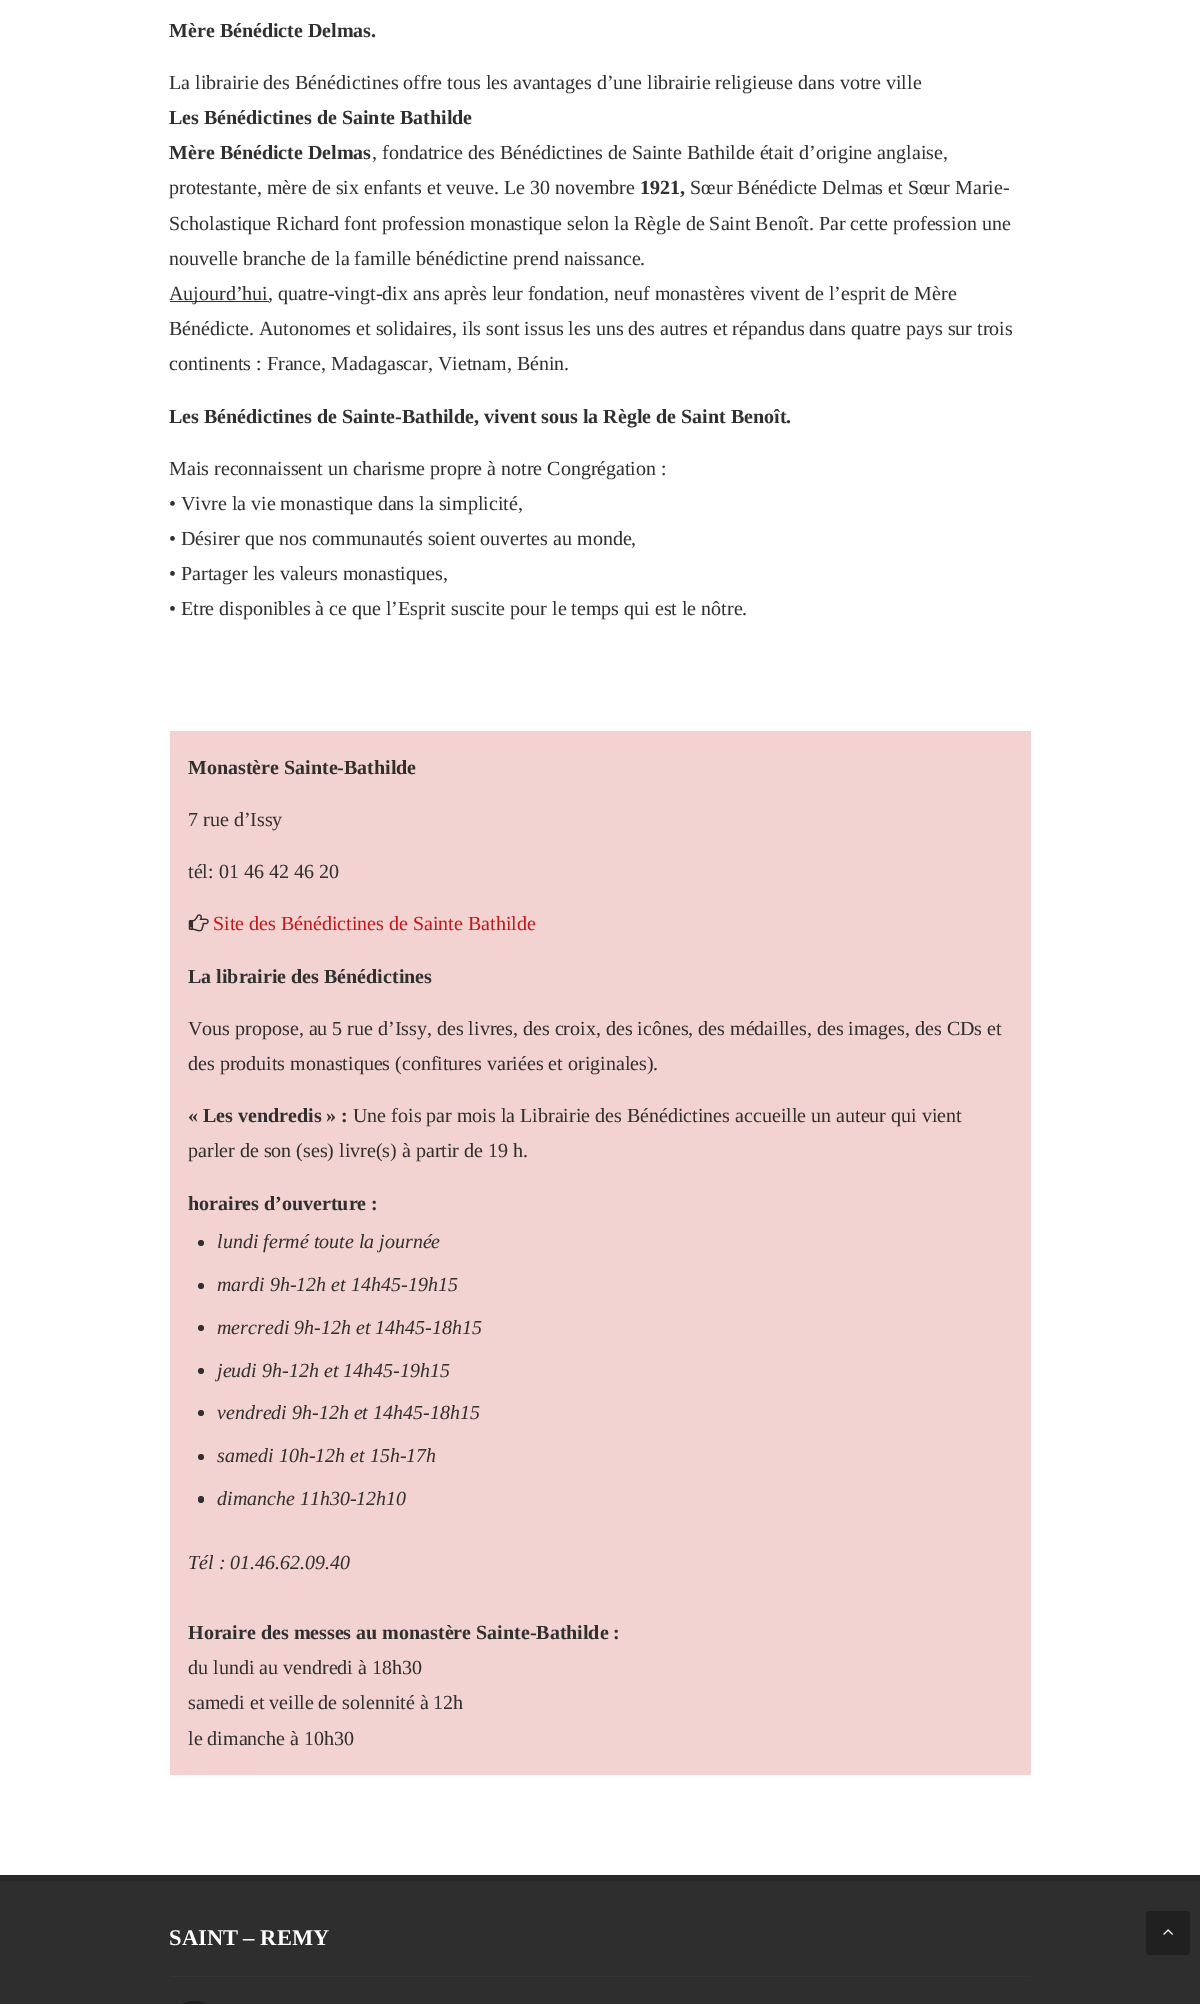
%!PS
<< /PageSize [1200 2004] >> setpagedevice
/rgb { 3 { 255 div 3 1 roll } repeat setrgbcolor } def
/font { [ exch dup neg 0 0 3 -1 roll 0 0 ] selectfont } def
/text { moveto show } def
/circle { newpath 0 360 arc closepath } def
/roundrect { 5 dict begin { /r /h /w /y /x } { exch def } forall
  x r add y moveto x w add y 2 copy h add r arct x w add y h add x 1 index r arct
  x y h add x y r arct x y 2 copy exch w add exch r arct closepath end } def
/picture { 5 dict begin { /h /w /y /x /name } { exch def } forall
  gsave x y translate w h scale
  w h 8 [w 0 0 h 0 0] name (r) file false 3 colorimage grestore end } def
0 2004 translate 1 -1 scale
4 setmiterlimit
255 255 255 rgb
0 0 1200 2004 rectfill
48 48 48 rgb
170 301 99 1 rectfill
243 210 210 rgb
170 731 861 1044 rectfill
(img_01.rgb) 188 914 21 18 picture
48 48 48 rgb
201 1243 3 circle fill
201 1286 3 circle fill
201 1328 3 circle fill
201 1371 3 circle fill
201 1413 3 circle fill
201 1457 3 circle fill
198 1496 6 7 3 roundrect fill
40 40 40 rgb
0 1875 1200 6 rectfill
46 46 46 rgb
0 1881 1200 123 rectfill
53 53 53 rgb
170 1976 861 1 rectfill
31 31 31 rgb
170 2001 48 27 24 roundrect fill
32 32 32 rgb
1146 1911 44 44 4 roundrect fill
(img_02.rgb) 1163 1929 10 6 picture
/LiberationSerif-Bold 20 font
48 48 48 rgb
(Mère Bénédicte Delmas.) 169 37 text
/LiberationSerif-Regular 20 font
(La librairie des Bénédictines offre tous les avantages d’une librairie religieuse dans votre ville) 169 89 text
/LiberationSerif-Bold 20 font
(Les Bénédictines de Sainte Bathilde) 169 124 text
(Mère Bénédicte Delmas) 169 159 text
/LiberationSerif-Regular 20 font
(, fondatrice des Bénédictines de Sainte Bathilde était d’origine anglaise,) 372 159 text
(protestante, mère de six enfants et veuve. Le 30 novembre) 169 194 text
/LiberationSerif-Bold 20 font
(1921,) 640 194 text
/LiberationSerif-Regular 20 font
(Sœur Bénédicte Delmas et Sœur Marie-) 690 194 text
(Scholastique Richard font profession monastique selon la Règle de Saint Benoît. Par cette profession une) 169 230 text
(nouvelle branche de la famille bénédictine prend naissance.) 169 265 text
(Aujourd’hui, quatre-vingt-dix ans après leur fondation, neuf monastères vivent de l’esprit de Mère) 169 300 text
(Bénédicte. Autonomes et solidaires, ils sont issus les uns des autres et répandus dans quatre pays sur trois) 169 335 text
(continents : France, Madagascar, Vietnam, Bénin.) 169 370 text
/LiberationSerif-Bold 20 font
(Les Bénédictines de Sainte-Bathilde, vivent sous la Règle de Saint Benoît.) 169 423 text
/LiberationSerif-Regular 20 font
(Mais reconnaissent un charisme propre à notre Congrégation :) 169 475 text
(• Vivre la vie monastique dans la simplicité,) 169 510 text
(• Désirer que nos communautés soient ouvertes au monde,) 169 545 text
(• Partager les valeurs monastiques,) 169 580 text
(• Etre disponibles à ce que l’Esprit suscite pour le temps qui est le nôtre.) 169 615 text
/LiberationSerif-Bold 20 font
(Monastère Sainte-Bathilde) 188 774 text
/LiberationSerif-Regular 20 font
(7 rue d’Issy) 188 826 text
(tél: 01 46 42 46 20) 188 878 text
192 24 24 rgb
(Site des Bénédictines de Sainte Bathilde) 213 930 text
/LiberationSerif-Bold 20 font
48 48 48 rgb
(La librairie des Bénédictines) 188 983 text
/LiberationSerif-Regular 20 font
(Vous propose, au 5 rue d’Issy, des livres, des croix, des icônes, des médailles, des images, des CDs et) 188 1035 text
(des produits monastiques \(confitures variées et originales\).) 188 1070 text
/LiberationSerif-Bold 20 font
(« Les vendredis » :) 188 1122 text
/LiberationSerif-Regular 20 font
(Une fois par mois la Librairie des Bénédictines accueille un auteur qui vient) 353 1122 text
(parler de son \(ses\) livre\(s\) à partir de 19 h.) 188 1157 text
/LiberationSerif-Bold 20 font
(horaires d’ouverture :) 188 1210 text
/LiberationSerif-Italic 20 font
(lundi fermé toute la journée) 217 1248 text
(mardi 9h-12h et 14h45-19h15) 217 1291 text
(mercredi 9h-12h et 14h45-18h15) 217 1334 text
(jeudi 9h-12h et 14h45-19h15) 217 1377 text
(vendredi 9h-12h et 14h45-18h15) 217 1419 text
(samedi 10h-12h et 15h-17h) 217 1462 text
(dimanche 11h30-12h10) 217 1505 text
(Tél : 01.46.62.09.40) 188 1569 text
/LiberationSerif-Bold 20 font
(Horaire des messes au monastère Sainte-Bathilde :) 188 1639 text
/LiberationSerif-Regular 20 font
(du lundi au vendredi à 18h30) 188 1674 text
(samedi et veille de solennité à 12h) 188 1709 text
(le dimanche à 10h30) 188 1745 text
/LiberationSerif-Bold 22.5 font
255 255 255 rgb
(SAINT – REMY) 169 1945 text
showpage
